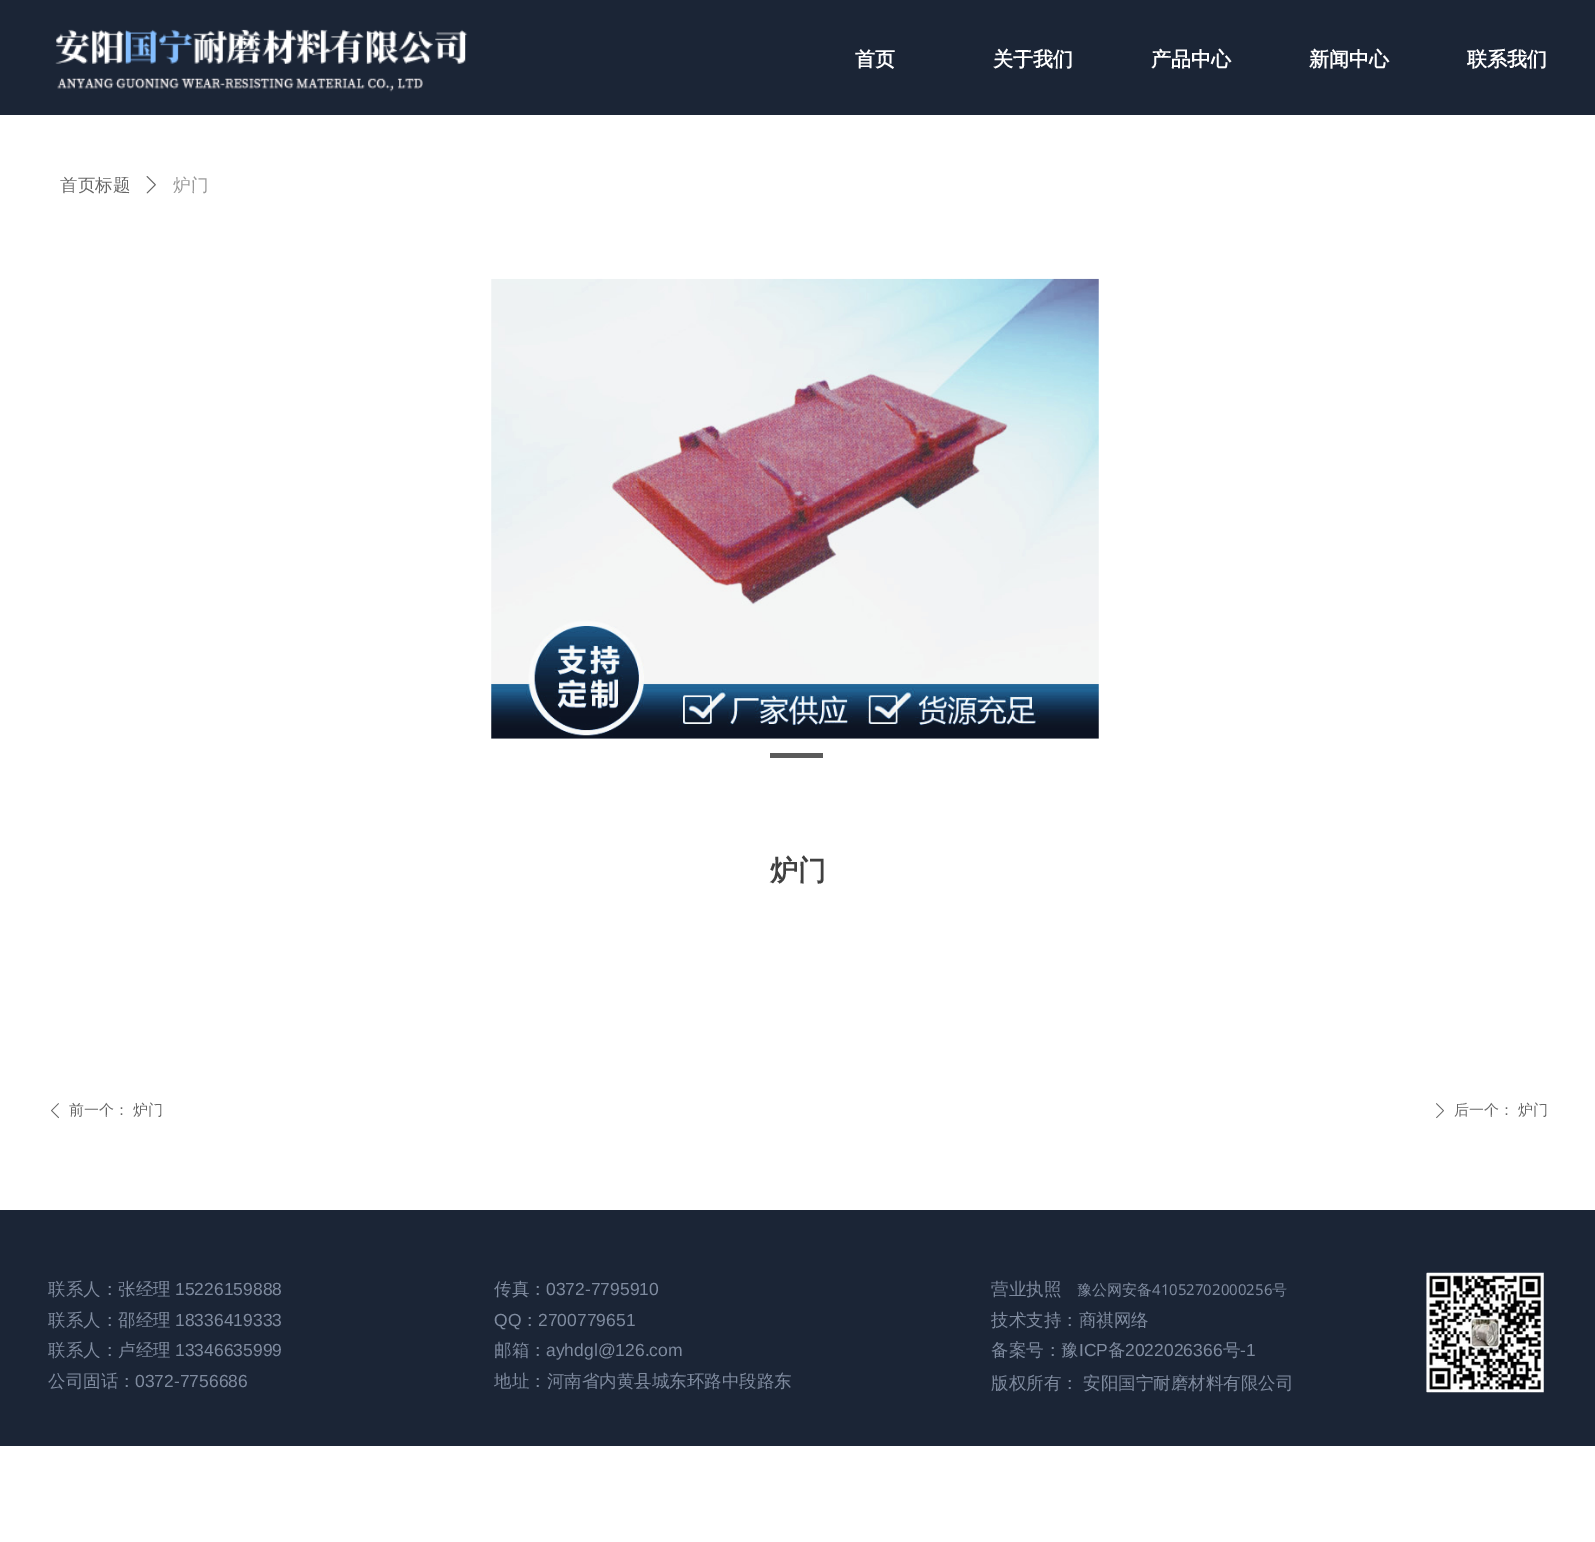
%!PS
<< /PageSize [1595 1542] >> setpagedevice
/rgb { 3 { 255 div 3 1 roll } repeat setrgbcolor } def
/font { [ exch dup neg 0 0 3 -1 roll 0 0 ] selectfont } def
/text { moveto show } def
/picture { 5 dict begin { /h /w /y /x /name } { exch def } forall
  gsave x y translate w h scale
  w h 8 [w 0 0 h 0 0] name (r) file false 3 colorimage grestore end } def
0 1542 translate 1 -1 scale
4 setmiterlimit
255 255 255 rgb
0 0 1595 1542 rectfill
27 37 54 rgb
0 0 1595 115 rectfill
(img_01.rgb) 55 29 413 63 picture
(img_02.rgb) 146 176 10 18 picture
(img_03.rgb) 491 278 608 461 picture
90 90 90 rgb
770 753 53 5 rectfill
(img_04.rgb) 51 1103 8 16 picture
(img_05.rgb) 1436 1103 8 16 picture
27 37 54 rgb
0 1210 1595 236 rectfill
(img_06.rgb) 1426 1272 118 121 picture
/WenQuanYiZenHei-Bold 20 font
255 255 255 rgb
(首页) 855 66 text
(关于我们) 993 66 text
(产品中心) 1151 66 text
(新闻中心) 1309 66 text
(联系我们) 1467 66 text
/WenQuanYiZenHei-Medium 17.5 font
102 102 102 rgb
(首页标题) 60 191 text
153 153 153 rgb
(炉门) 173 191 text
/WenQuanYiZenHei-Bold 28 font
64 64 64 rgb
(炉门) 770 880 text
/WenQuanYiZenHei-Medium 15 font
102 102 102 rgb
(前一个：) 69 1115 text
(炉门) 133 1115 text
(后一个：) 1454 1115 text
(炉门) 1518 1115 text
gsave
48 1274 436 154 rectclip
/WenQuanYiZenHei-Medium 17.5 font
127 139 159 rgb
(联系人：张经理) 48 1295 text
grestore
/LiberationSans-Regular 17.5 font
127 139 159 rgb
(15226159888) 175 1295 text
gsave
48 1274 436 154 rectclip
/WenQuanYiZenHei-Medium 17.5 font
(联系人：邵经理) 48 1326 text
grestore
(18336419333) 175 1326 text
gsave
48 1274 436 154 rectclip
/WenQuanYiZenHei-Medium 17.5 font
(联系人：卢经理) 48 1356 text
grestore
(13346635999) 175 1356 text
/WenQuanYiZenHei-Medium 17.5 font
(公司固话：) 48 1387 text
/LiberationSans-Regular 17.5 font
(0372-7756686) 135 1387 text
/WenQuanYiZenHei-Medium 17.5 font
(传真：) 494 1295 text
/LiberationSans-Regular 17.5 font
(0372-7795910) 546 1295 text
(QQ) 494 1326 text
/WenQuanYiZenHei-Medium 17.5 font
(：) 521 1326 text
/LiberationSans-Regular 17.5 font
(2700779651) 538 1326 text
/WenQuanYiZenHei-Medium 17.5 font
(邮箱：) 494 1356 text
/LiberationSans-Regular 17.5 font
(ayhdgl@126.com) 546 1356 text
/WenQuanYiZenHei-Medium 17.5 font
(地址：河南省内黄县城东环路中段路东) 494 1387 text
(营业执照) 991 1295 text
/WenQuanYiZenHei-Medium 15 font
(豫公网安备) 1077 1295 text
/NotoSans-Regular 15 font
(41052702000256) 1152 1295 text
/WenQuanYiZenHei-Medium 15 font
(号) 1272 1295 text
/WenQuanYiZenHei-Medium 17.5 font
(技术支持：商祺网络) 991 1326 text
(备案号：豫) 991 1356 text
/LiberationSans-Regular 17.5 font
(ICP) 1079 1356 text
/WenQuanYiZenHei-Medium 17.5 font
(备) 1108 1356 text
/LiberationSans-Regular 17.5 font
(2022026366) 1125 1356 text
/WenQuanYiZenHei-Medium 17.5 font
(号) 1223 1356 text
/LiberationSans-Regular 17.5 font
(-1) 1240 1356 text
/WenQuanYiZenHei-Medium 17.5 font
(版权所有：) 991 1389 text
(安阳国宁耐磨材料有限公司) 1083 1389 text
showpage
